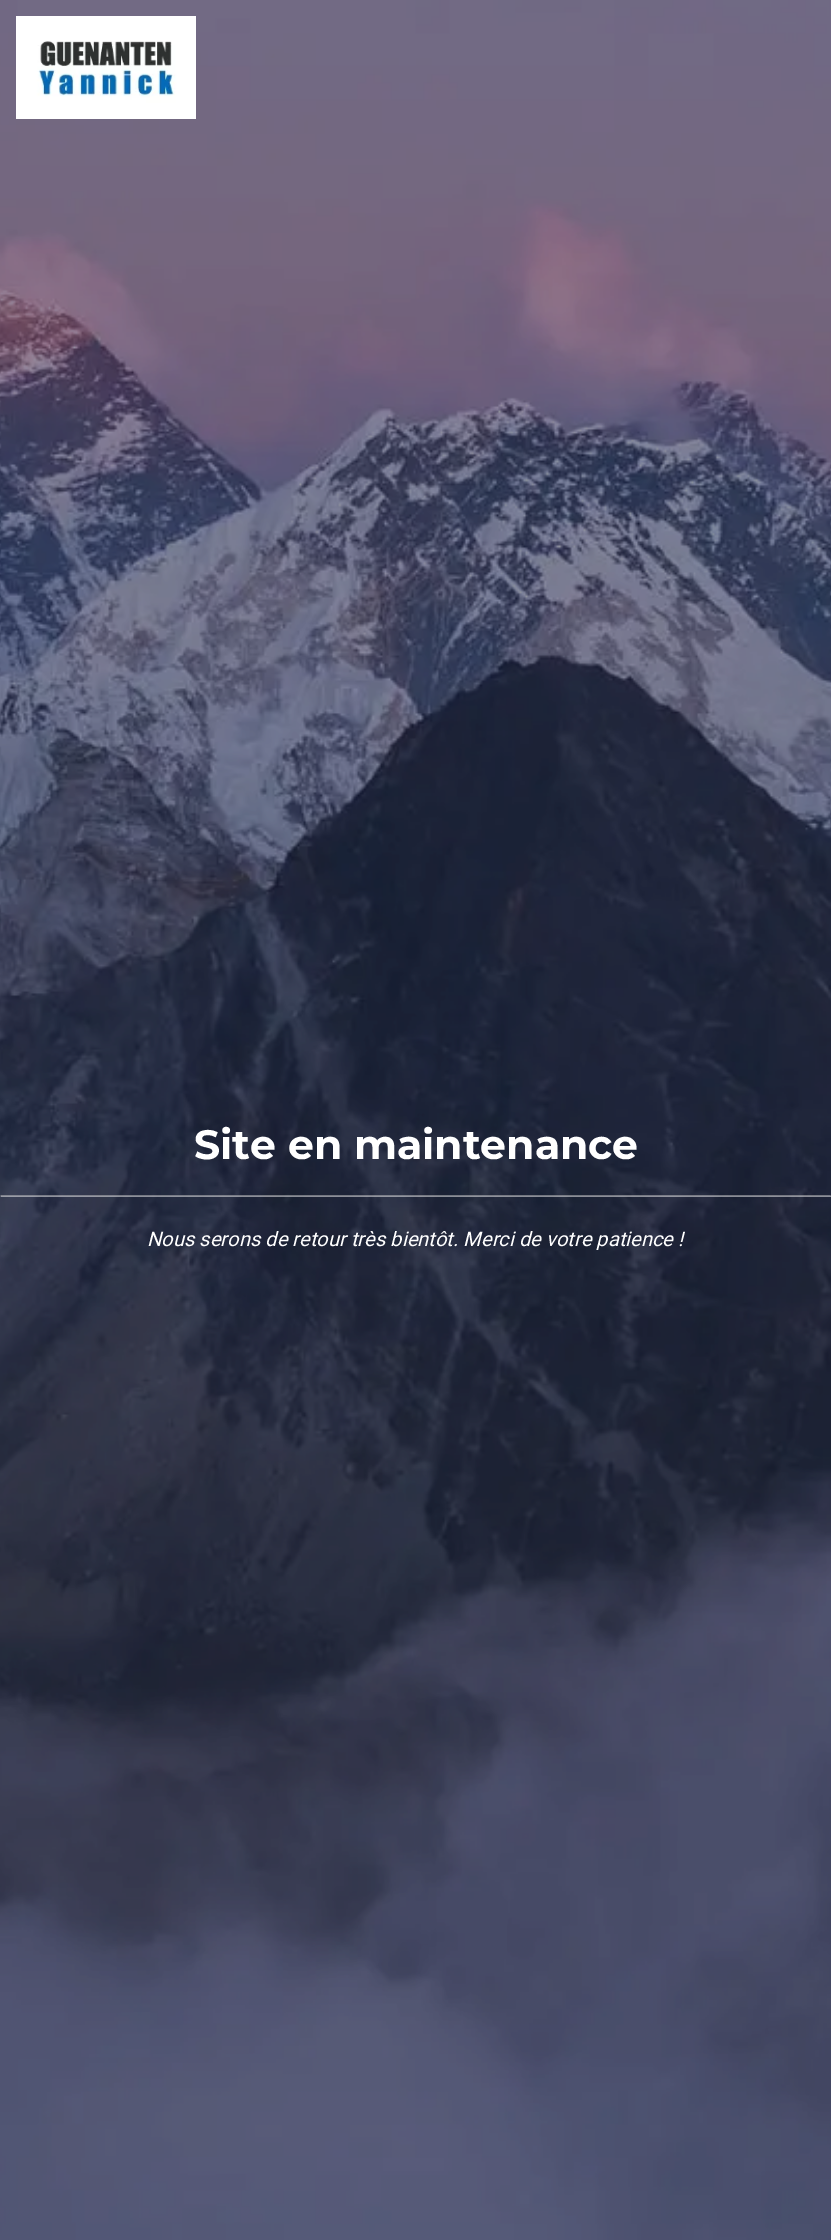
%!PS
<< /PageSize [831 2240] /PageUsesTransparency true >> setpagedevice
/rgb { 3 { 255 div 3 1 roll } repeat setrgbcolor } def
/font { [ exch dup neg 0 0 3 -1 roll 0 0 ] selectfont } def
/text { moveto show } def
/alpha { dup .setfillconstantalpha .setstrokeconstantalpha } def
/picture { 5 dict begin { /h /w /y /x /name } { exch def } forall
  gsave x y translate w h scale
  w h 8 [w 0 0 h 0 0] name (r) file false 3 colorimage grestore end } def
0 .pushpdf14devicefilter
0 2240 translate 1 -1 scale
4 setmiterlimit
255 255 255 rgb
0 0 831 2240 rectfill
(img_01.rgb) 0 0 831 2240 picture
(img_02.rgb) 16 16 180 103 picture
0.3 alpha
0 1195 831 2 rectfill
159 159 159 rgb
0 1195 831 1 rectfill
1 alpha
93 97 111 rgb
830 1195 1 2 rectfill
0.3 alpha
238 238 238 rgb
0 1196 831 1 rectfill
1 alpha
84 88 103 rgb
0 1195 1 2 rectfill
/Montserrat-Bold 41 font
255 255 255 rgb
(Site en maintenance) 194 1159 text
/Roboto-Italic 20.15 font
(Nous serons de retour très bientôt. Merci de votre patience !) 147 1246 text
.poppdf14devicefilter showpage
